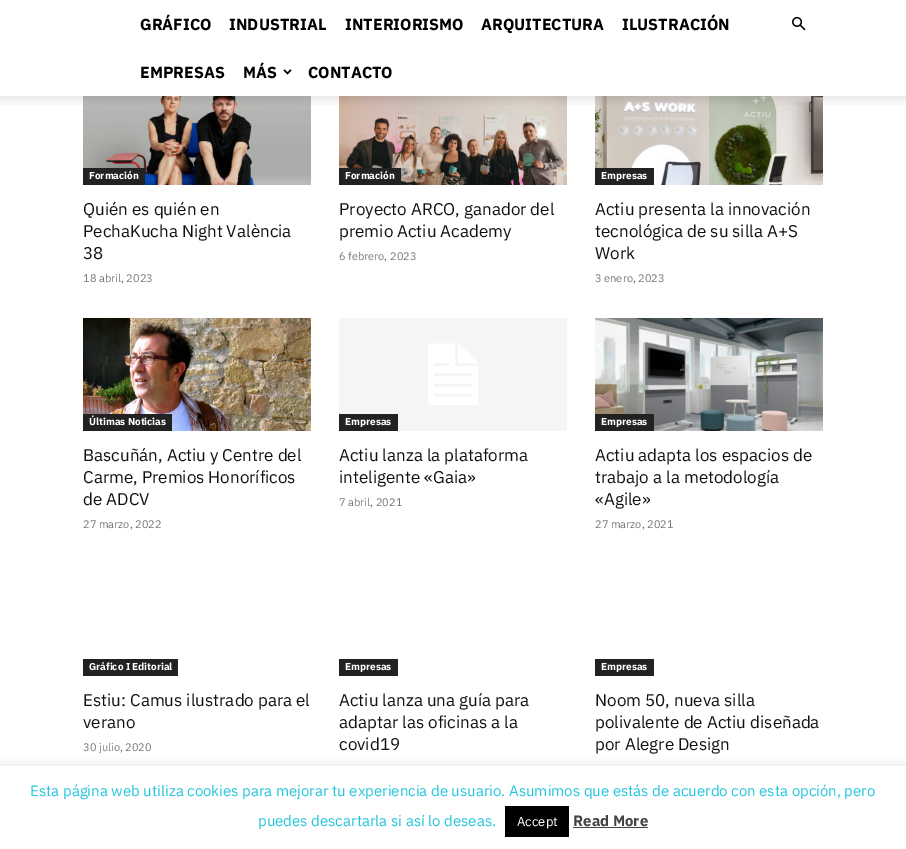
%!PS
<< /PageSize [906 849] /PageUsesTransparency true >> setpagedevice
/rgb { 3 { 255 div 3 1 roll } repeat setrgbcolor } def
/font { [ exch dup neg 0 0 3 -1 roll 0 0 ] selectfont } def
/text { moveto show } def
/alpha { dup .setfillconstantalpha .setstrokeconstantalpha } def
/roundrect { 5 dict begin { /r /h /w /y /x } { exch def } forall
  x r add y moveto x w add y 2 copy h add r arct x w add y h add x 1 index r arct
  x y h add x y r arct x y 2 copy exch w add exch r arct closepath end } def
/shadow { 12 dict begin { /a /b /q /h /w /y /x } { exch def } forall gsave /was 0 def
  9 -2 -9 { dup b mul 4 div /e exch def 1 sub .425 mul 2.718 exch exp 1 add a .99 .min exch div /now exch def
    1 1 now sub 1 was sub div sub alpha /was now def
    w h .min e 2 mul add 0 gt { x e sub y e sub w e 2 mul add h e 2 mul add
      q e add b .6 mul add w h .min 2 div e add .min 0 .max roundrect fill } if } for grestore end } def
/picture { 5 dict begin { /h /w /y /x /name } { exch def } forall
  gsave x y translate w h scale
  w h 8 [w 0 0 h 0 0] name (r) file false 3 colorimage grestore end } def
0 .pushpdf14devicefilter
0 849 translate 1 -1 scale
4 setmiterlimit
255 255 255 rgb
0 0 906 849 rectfill
(img_01.rgb) 283 69 9 6 picture
(img_02.rgb) 792 16 14 15 picture
(img_04.rgb) 83 96 228 89 picture
(img_05.rgb) 339 96 228 89 picture
(img_06.rgb) 595 96 228 89 picture
(img_03.rgb) 0 96 906 9 picture
34 34 34 rgb
83 168 62 17 rectfill
339 168 62 17 rectfill
595 168 59 17 rectfill
(img_07.rgb) 83 318 228 113 picture
83 414 89 17 rectfill
(img_08.rgb) 339 318 228 113 picture
339 414 59 17 rectfill
(img_09.rgb) 595 318 228 113 picture
595 414 59 17 rectfill
83 659 95 17 rectfill
339 659 59 17 rectfill
595 659 59 17 rectfill
172 171 171 rgb
0 765 906 83 0 5 0.3 shadow
255 255 255 rgb
0 766 906 83 rectfill
0 0 0 rgb
505 806 64 31 rectfill
68 68 68 rgb
573 827 75 1 rectfill
/IBMPlexSans-Bold 16 font
0 0 0 rgb
(GRÁFICO) 140 30 text
(INDUSTRIAL) 229 30 text
(INTERIORISMO) 345 30 text
(ARQUITECTURA) 481 30 text
(ILUSTRACIÓN) 622 30 text
(EMPRESAS) 140 78 text
(MÁS) 243 78 text
(CONTACTO) 308 78 text
/IBMPlexSans-Bold 10 font
255 255 255 rgb
(Formación) 89 179 text
/IBMPlexSans-Regular 17 font
17 17 17 rgb
(Quién es quién en) 83 215 text
(PechaKucha Night València) 83 237 text
(38) 83 259 text
/IBMPlexSans-Regular 11 font
118 118 118 rgb
(18 abril, 2023) 83 282 text
/IBMPlexSans-Bold 10 font
255 255 255 rgb
(Formación) 345 179 text
/IBMPlexSans-Regular 17 font
17 17 17 rgb
(Proyecto ARCO, ganador del) 339 215 text
(premio Actiu Academy) 339 237 text
/IBMPlexSans-Regular 11 font
118 118 118 rgb
(6 febrero, 2023) 339 260 text
/IBMPlexSans-Bold 10 font
255 255 255 rgb
(Empresas) 601 179 text
/IBMPlexSans-Regular 17 font
17 17 17 rgb
(Actiu presenta la innovación) 595 215 text
(tecnológica de su silla A+S) 595 237 text
(Work) 595 259 text
/IBMPlexSans-Regular 11 font
118 118 118 rgb
(3 enero, 2023) 595 282 text
/IBMPlexSans-Bold 10 font
255 255 255 rgb
(Últimas Noticias) 89 425 text
/IBMPlexSans-Regular 17 font
17 17 17 rgb
(Bascuñán, Actiu y Centre del) 83 461 text
(Carme, Premios Honoríficos) 83 483 text
(de ADCV) 83 505 text
/IBMPlexSans-Regular 11 font
118 118 118 rgb
(27 marzo, 2022) 83 528 text
/IBMPlexSans-Bold 10 font
255 255 255 rgb
(Empresas) 345 425 text
/IBMPlexSans-Regular 17 font
17 17 17 rgb
(Actiu lanza la plataforma) 339 461 text
(inteligente «Gaia») 339 483 text
/IBMPlexSans-Regular 11 font
118 118 118 rgb
(7 abril, 2021) 339 506 text
/IBMPlexSans-Bold 10 font
255 255 255 rgb
(Empresas) 601 425 text
/IBMPlexSans-Regular 17 font
17 17 17 rgb
(Actiu adapta los espacios de) 595 461 text
(trabajo a la metodología) 595 483 text
(«Agile») 595 505 text
/IBMPlexSans-Regular 11 font
118 118 118 rgb
(27 marzo, 2021) 595 528 text
/IBMPlexSans-Bold 10 font
255 255 255 rgb
(Gráfico I Editorial) 89 670 text
/IBMPlexSans-Regular 17 font
17 17 17 rgb
(Estiu: Camus ilustrado para el) 83 706 text
(verano) 83 728 text
/IBMPlexSans-Regular 11 font
118 118 118 rgb
(30 julio, 2020) 83 751 text
/IBMPlexSans-Bold 10 font
255 255 255 rgb
(Empresas) 345 670 text
/IBMPlexSans-Regular 17 font
17 17 17 rgb
(Actiu lanza una guía para) 339 706 text
(adaptar las oficinas a la) 339 728 text
(covid19) 339 750 text
/IBMPlexSans-Bold 10 font
255 255 255 rgb
(Empresas) 601 670 text
/IBMPlexSans-Regular 17 font
17 17 17 rgb
(Noom 50, nueva silla) 595 706 text
(polivalente de Actiu diseñada) 595 728 text
(por Alegre Design) 595 750 text
/IBMPlexSans-Regular 15 font
35 197 221 rgb
(Esta página web utiliza cookies para mejorar tu experiencia de usuario. Asumimos que estás de acuerdo con esta opción, pero) 30 796 text
(puedes descartarla si así lo deseas.) 258 826 text
/IBMPlexSans-Regular 13 font
255 255 255 rgb
(Accept) 517 826 text
/IBMPlexSans-Bold 15 font
68 68 68 rgb
(Read More) 573 826 text
.poppdf14devicefilter showpage
